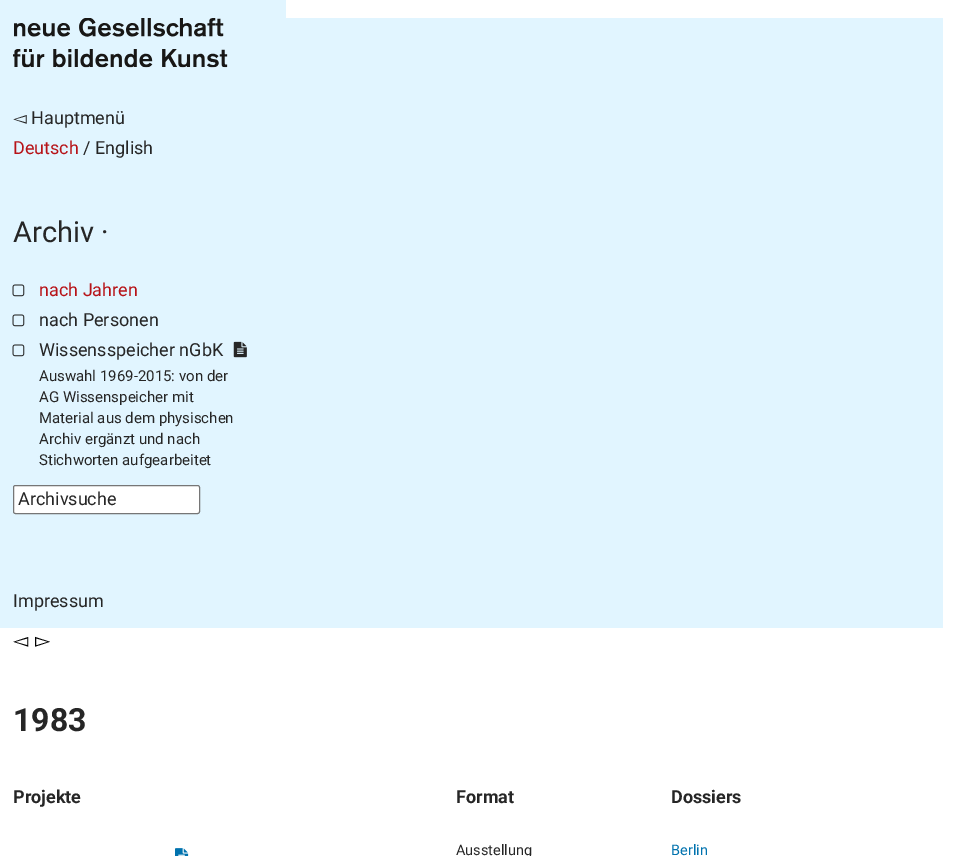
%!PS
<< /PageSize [955 856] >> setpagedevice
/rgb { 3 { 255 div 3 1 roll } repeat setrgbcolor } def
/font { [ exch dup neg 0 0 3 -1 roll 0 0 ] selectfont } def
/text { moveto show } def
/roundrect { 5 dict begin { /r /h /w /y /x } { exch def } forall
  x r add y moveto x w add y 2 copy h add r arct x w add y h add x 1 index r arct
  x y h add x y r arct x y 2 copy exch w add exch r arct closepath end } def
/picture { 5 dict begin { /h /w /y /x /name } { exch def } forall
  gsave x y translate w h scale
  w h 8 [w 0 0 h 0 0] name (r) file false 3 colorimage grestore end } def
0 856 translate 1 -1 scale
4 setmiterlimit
255 255 255 rgb
0 0 955 856 rectfill
225 245 255 rgb
0 0 286 628 rectfill
286 18 657 610 rectfill
(img_01.rgb) 13 18 215 50 picture
(img_02.rgb) 12 284 13 13 picture
(img_02.rgb) 12 314 13 13 picture
(img_02.rgb) 12 344 13 13 picture
(img_03.rgb) 233 341 14 17 picture
255 255 255 rgb
13.5 485.5 186 28 2 roundrect gsave fill grestore
118 118 118 rgb
stroke
(img_04.rgb) 175 848 14 8 picture
/DejaVuSans-Regular 18 font
38 38 38 rgb
(◅) 13 124 text
/Roboto-Regular 18 font
(Hauptmenü) 31 124 text
183 19 24 rgb
(Deutsch) 13 154 text
38 38 38 rgb
(/ English) 83 154 text
/Roboto-Regular 29 font
(Archiv ·) 13 242 text
/Roboto-Regular 18 font
183 19 24 rgb
(nach Jahren) 39 296 text
38 38 38 rgb
(nach Personen) 39 326 text
(Wissensspeicher nGbK) 39 356 text
/Roboto-Regular 15 font
(Auswahl 1969-2015: von der) 39 381 text
(AG Wissenspeicher mit) 39 402 text
(Material aus dem physischen) 39 423 text
(Archiv ergänzt und nach) 39 444 text
(Stichworten aufgearbeitet) 39 465 text
/Roboto-Regular 18 font
(Archivsuche) 18 505 text
(Impressum) 13 607 text
/DejaVuSans-Regular 20 font
0 0 0 rgb
(◅) 13 647 text
(▻) 35 647 text
/Roboto-Bold 32 font
38 38 38 rgb
(1983) 13 731 text
/Roboto-Bold 18 font
(Projekte) 13 803 text
(Format) 456 803 text
(Dossiers) 671 803 text
/Roboto-Regular 14.5 font
(Ausstellung) 456 855 text
0 114 174 rgb
(Berlin) 671 855 text
showpage
